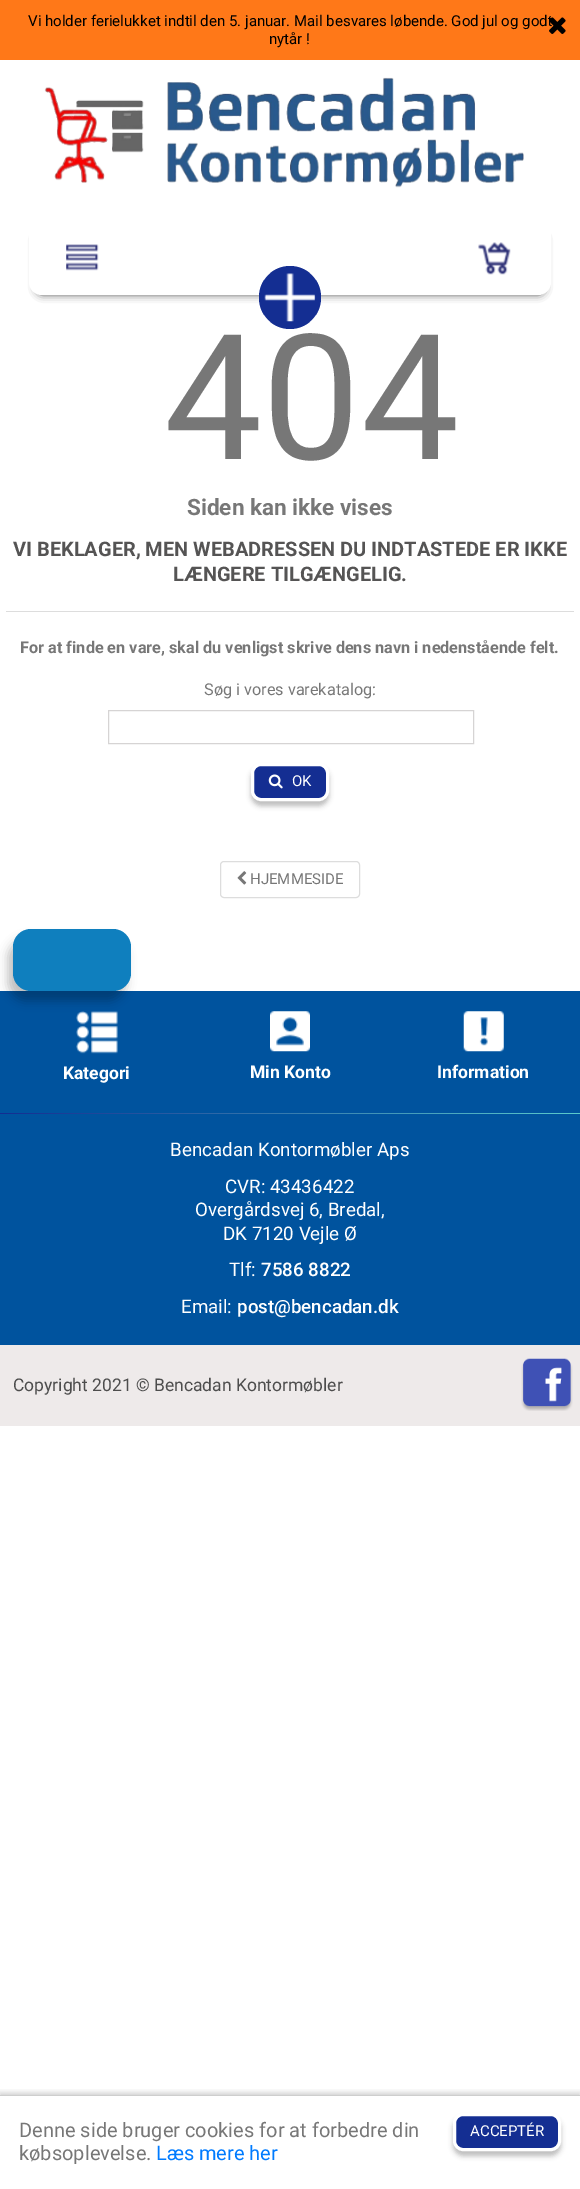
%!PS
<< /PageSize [580 2189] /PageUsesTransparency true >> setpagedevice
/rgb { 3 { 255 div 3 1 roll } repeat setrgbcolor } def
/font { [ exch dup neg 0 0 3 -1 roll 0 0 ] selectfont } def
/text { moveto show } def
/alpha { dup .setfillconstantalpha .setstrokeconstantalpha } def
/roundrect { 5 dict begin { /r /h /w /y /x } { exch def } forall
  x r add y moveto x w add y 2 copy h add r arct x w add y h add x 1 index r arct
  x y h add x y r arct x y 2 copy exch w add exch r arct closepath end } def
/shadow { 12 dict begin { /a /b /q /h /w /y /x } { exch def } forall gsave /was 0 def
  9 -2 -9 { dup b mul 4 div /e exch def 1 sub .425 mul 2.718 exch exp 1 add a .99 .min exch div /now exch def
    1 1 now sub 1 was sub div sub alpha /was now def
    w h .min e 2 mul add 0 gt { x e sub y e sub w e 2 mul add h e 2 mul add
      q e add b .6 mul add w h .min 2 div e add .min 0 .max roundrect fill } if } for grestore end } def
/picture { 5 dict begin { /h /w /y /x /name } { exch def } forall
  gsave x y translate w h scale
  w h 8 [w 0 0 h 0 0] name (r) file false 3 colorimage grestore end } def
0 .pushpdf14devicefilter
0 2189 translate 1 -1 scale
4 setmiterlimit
255 255 255 rgb
0 0 580 2189 rectfill
255 120 24 rgb
0 0 580 60 rectfill
(img_02.rgb) 44 77 480 111 picture
0 0 0 rgb
38 235 505 58 4 4.5 1 shadow
255 255 255 rgb
29 220 522 75 13 roundrect fill
(img_03.rgb) 66 244 33 27 picture
(img_04.rgb) 478 242 33 33 picture
20 46 146 rgb
259 266 62 63 31 roundrect fill
(img_05.rgb) 264 273 52 49 picture
221 221 221 rgb
6 611 568 1 rectfill
214 212 212 rgb
108.5 710.5 365 33 rectstroke
0 0 0 rgb
251 768 78 38 10 2.5 0.25 shadow
20 46 146 rgb
252.5 764.5 75 35 8.5 roundrect gsave fill grestore
255 255 255 rgb
3 setlinewidth
stroke
(img_06.rgb) 268 774 15 15 picture
221 221 221 rgb
1 setlinewidth
220.5 861.5 139 36 3.5 roundrect stroke
(img_07.rgb) 237 871 10 14 picture
0 83 158 rgb
0 991 580 354 rectfill
(img_08.rgb) 76 1011 42 43 picture
0 0 0 rgb
8 939 118 62 18 5 0.25 shadow
15 127 190 rgb
13 929 118 62 18 roundrect fill
(img_09.rgb) 270 1011 40 41 picture
(img_10.rgb) 463 1011 41 41 picture
gsave 0 1113 moveto 580 0 rlineto 0 1 rlineto -580 0 rlineto closepath clip newpath
<< /ShadingType 2 /ColorSpace /DeviceRGB /Coords [580 1113 0 1113] /Extend [true true] /Function << /FunctionType 2 /Domain [0 1] /C0 [0.357 0.796 0.8] /C1 [0.075 0.176 0.569] /N 1 >> >> shfill grestore
238 234 234 rgb
0 1345 580 81 rectfill
(img_11.rgb) 521 1358 52 53 picture
gsave
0 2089 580 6 rectclip
0 0 0 rgb
0 2093 580 95 0 3 0.2 shadow
grestore
206 206 206 rgb
0 2095 580 1 rectfill
0 0 0 rgb
453 2118 108 38 10 2.5 0.25 shadow
20 46 146 rgb
454.5 2114.5 105 35 8.5 roundrect gsave fill grestore
255 255 255 rgb
3 setlinewidth
stroke
/Roboto-Regular 15 font
0 0 0 rgb
(Vi holder ferielukket indtil den 5. januar. Mail besvares løbende. God jul og godt) 28 26 text
(nytår !) 269 44 text
(img_01.rgb) 549 17 17 17 picture
/Roboto-Regular 175 font
119 119 119 rgb
(404) 164 459 text
/Roboto-Bold 22.5 font
(Siden kan ikke vises) 187 515 text
/Roboto-Bold 20 font
85 84 84 rgb
(VI BEKLAGER, MEN WEBADRESSEN DU INDTASTEDE ER IKKE) 13 556 text
(LÆNGERE TILGÆNGELIG.) 173 581 text
/Roboto-Bold 16.25 font
119 119 119 rgb
(For at finde en vare, skal du venligst skrive dens navn i nedenstående felt.) 20 653 text
/Roboto-Regular 16.25 font
(Søg i vores varekatalog:) 204 695 text
/Roboto-Regular 15 font
255 255 255 rgb
(OK) 292 786 text
119 119 119 rgb
(HJEMMESIDE) 250 884 text
/Roboto-Bold 17.5 font
255 255 255 rgb
(Kategori) 63 1079 text
(Min Konto) 250 1078 text
(Information) 437 1078 text
/Roboto-Regular 18.75 font
(Bencadan Kontormøbler Aps) 170 1156 text
(CVR: 43436422) 225 1193 text
(Overgårdsvej 6, Bredal,) 195 1216 text
(DK 7120 Vejle Ø) 223 1240 text
(Tlf:) 229 1276 text
/Roboto-Medium 18.75 font
(7586 8822) 261 1276 text
/Roboto-Regular 18.75 font
(Email:) 181 1313 text
/Roboto-Medium 18.75 font
(post@bencadan.dk) 237 1313 text
/Roboto-Regular 17.5 font
77 77 77 rgb
(Copyright 2021 © Bencadan Kontormøbler) 13 1391 text
/Roboto-Regular 20 font
119 119 119 rgb
(Denne side bruger cookies for at forbedre din) 19 2137 text
(købsoplevelse.) 19 2160 text
0 123 255 rgb
(Læs mere her) 156 2160 text
/Roboto-Regular 15 font
255 255 255 rgb
(ACCEPTÉR) 470 2136 text
.poppdf14devicefilter showpage
